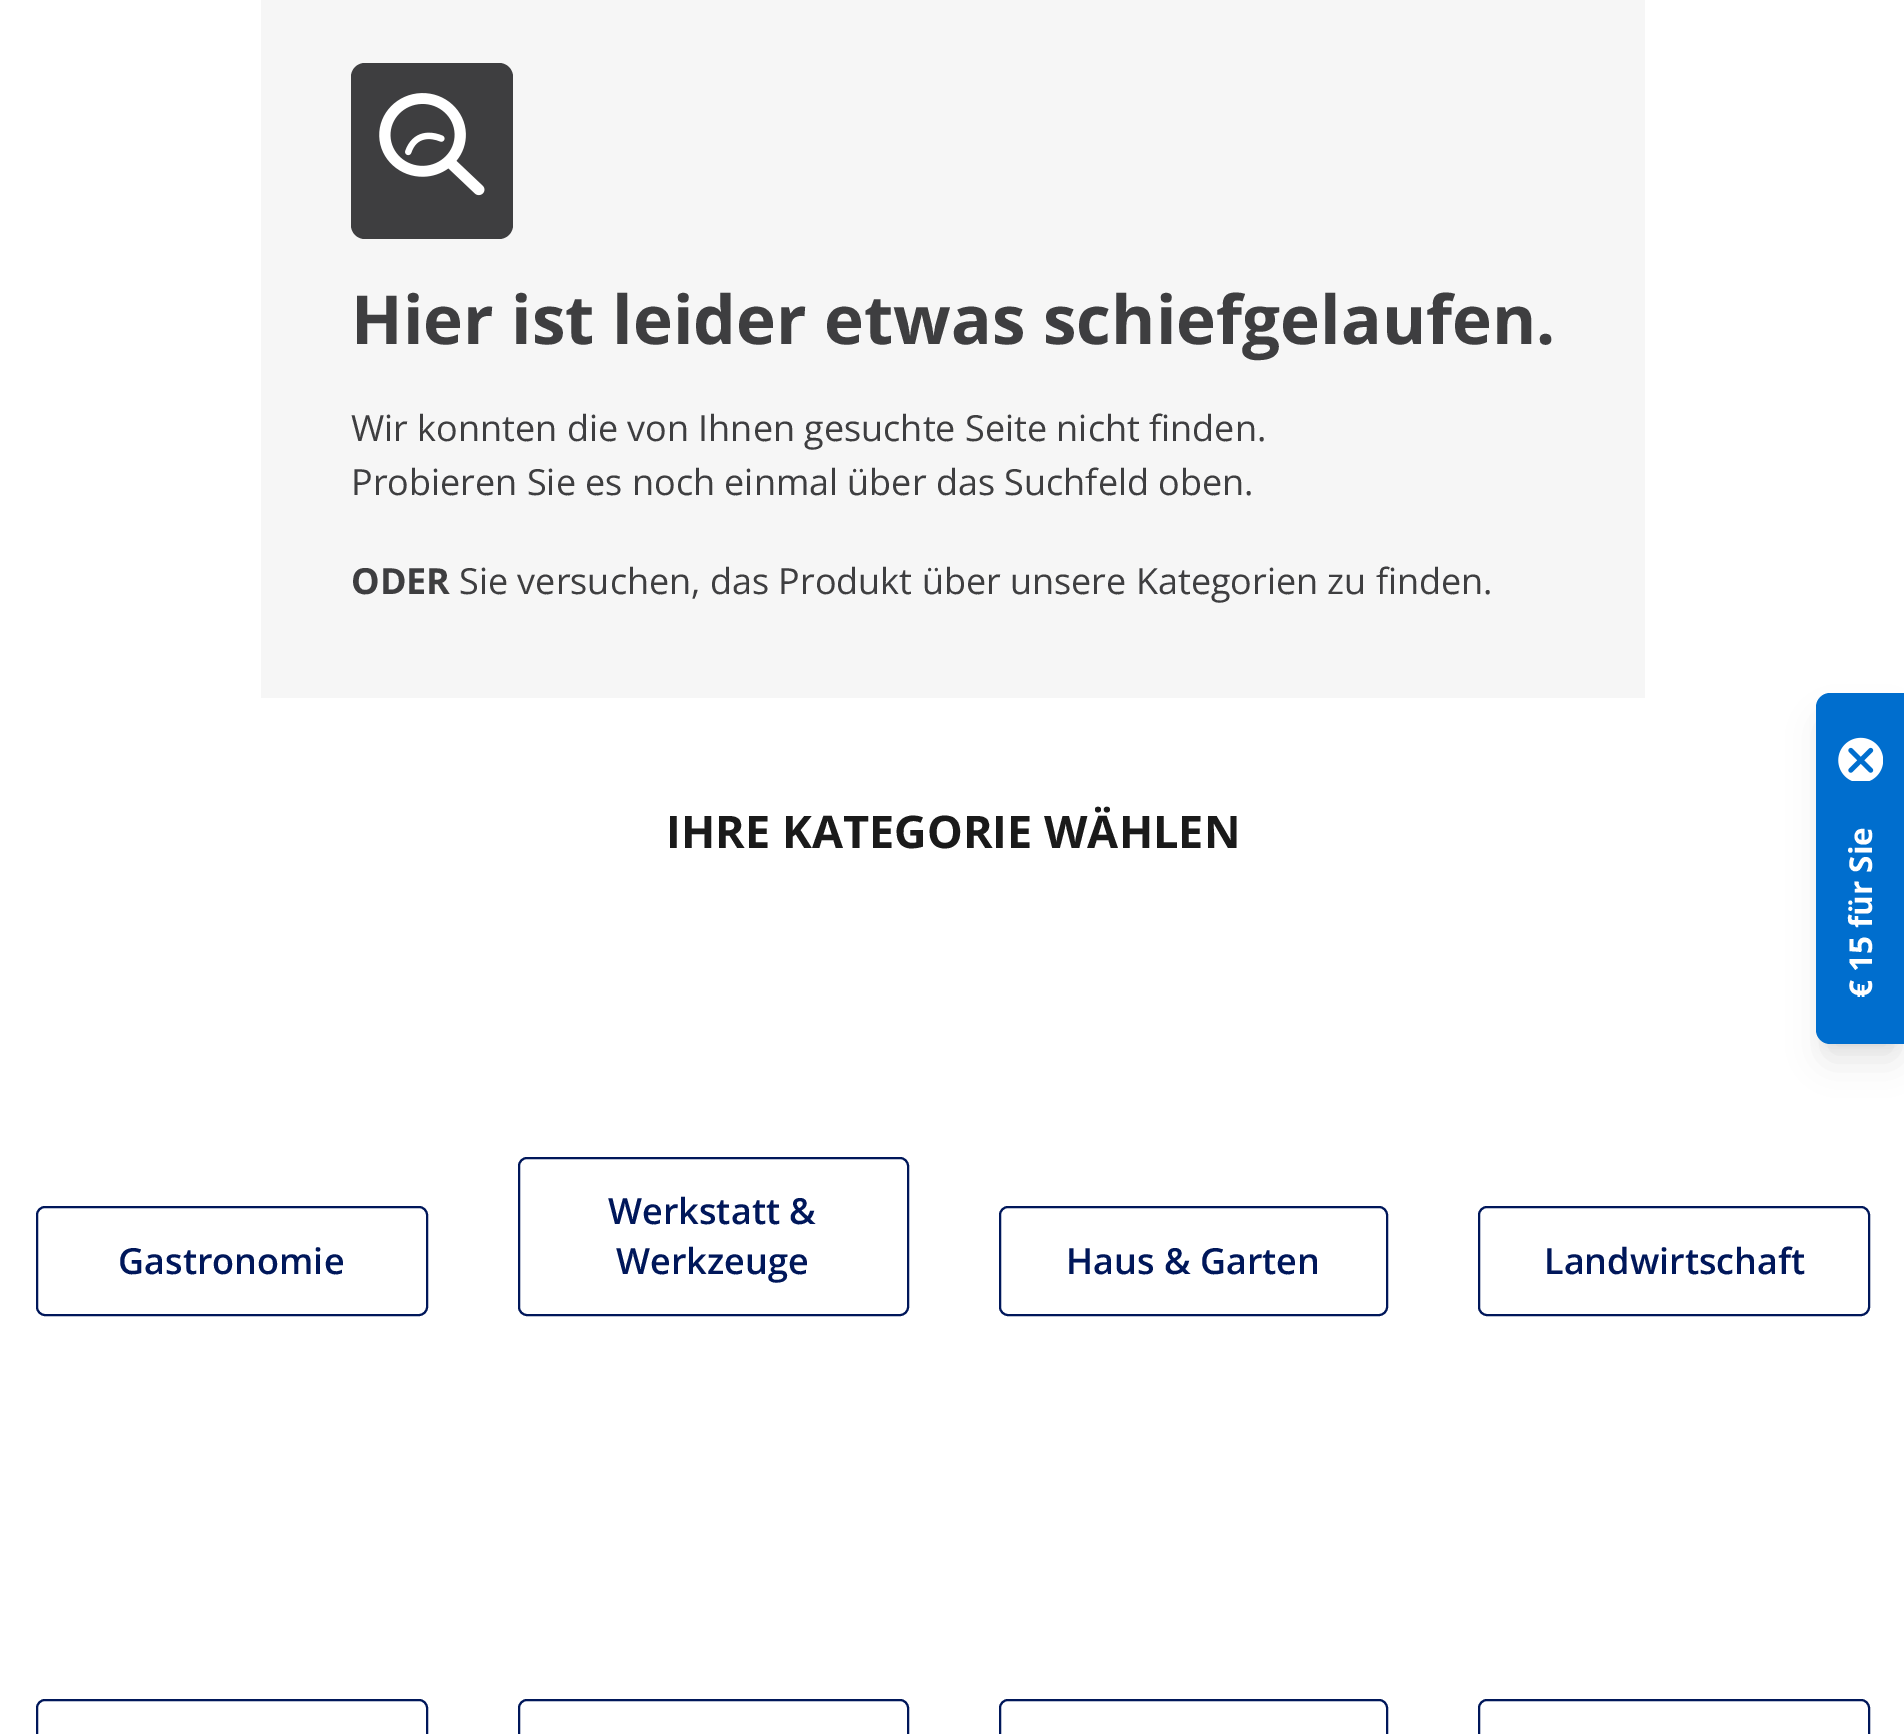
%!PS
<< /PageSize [1904 1734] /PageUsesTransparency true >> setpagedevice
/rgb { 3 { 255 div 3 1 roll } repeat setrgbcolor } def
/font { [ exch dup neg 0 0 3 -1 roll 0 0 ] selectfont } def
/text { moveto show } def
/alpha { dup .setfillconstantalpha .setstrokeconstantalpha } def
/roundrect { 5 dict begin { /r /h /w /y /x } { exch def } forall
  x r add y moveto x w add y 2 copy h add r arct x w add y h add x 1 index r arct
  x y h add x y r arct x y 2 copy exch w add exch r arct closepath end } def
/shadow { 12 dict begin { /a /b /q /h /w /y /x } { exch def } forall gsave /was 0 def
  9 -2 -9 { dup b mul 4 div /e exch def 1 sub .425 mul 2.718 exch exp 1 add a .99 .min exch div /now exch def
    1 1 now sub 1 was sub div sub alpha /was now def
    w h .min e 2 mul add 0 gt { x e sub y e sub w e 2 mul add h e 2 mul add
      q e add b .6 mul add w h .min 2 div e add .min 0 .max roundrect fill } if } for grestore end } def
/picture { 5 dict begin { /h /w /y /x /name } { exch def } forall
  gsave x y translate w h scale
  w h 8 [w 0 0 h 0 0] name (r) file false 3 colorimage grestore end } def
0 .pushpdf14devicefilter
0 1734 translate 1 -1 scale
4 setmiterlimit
255 255 255 rgb
0 0 1904 1734 rectfill
246 246 246 rgb
261 0 1384 698 rectfill
62 62 64 rgb
351 63 162 176 14 roundrect fill
(img_01.rgb) 379 93 106 103 picture
0 23 90 rgb
2 setlinewidth
37 1207 390 108 8 roundrect stroke
519 1158 389 157 8 roundrect stroke
1000 1207 387 108 8 roundrect stroke
1479 1207 390 108 8 roundrect stroke
37 1700 390 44 8 roundrect stroke
519 1700 389 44 8 roundrect stroke
1000 1700 387 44 8 roundrect stroke
1479 1700 390 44 8 roundrect stroke
0 0 0 rgb
1825 711 72 333 5 7 0.1 shadow
1823 722 76 338 7 17 0.1 shadow
0 110 206 rgb
1830 693 moveto 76 0 rlineto 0 351 rlineto -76 0 rlineto -7.5 0 -14 -6.5 -14 -14 rcurveto 0 -323 rlineto 0 -7.5 6.5 -14 14 -14 rcurveto closepath fill
(img_02.rgb) 1838 737 45 44 picture
/OpenSans-Bold 67.5 font
62 62 64 rgb
(Hier ist leider etwas schiefgelaufen.) 351 344 text
/OpenSans-Regular 36 font
(Wir konnten die von Ihnen gesuchte Seite nicht finden.) 351 441 text
(Probieren Sie es noch einmal über das Suchfeld oben.) 351 495 text
/OpenSans-Bold 36 font
(ODER) 351 594 text
/OpenSans-Regular 36 font
(Sie versuchen, das Produkt über unsere Kategorien zu finden.) 459 594 text
/OpenSans-Bold 45 font
26 26 26 rgb
(IHRE KATEGORIE WÄHLEN) 666 848 text
/OpenSans-SemiBold 36 font
0 23 90 rgb
(Gastronomie) 118 1274 text
(Werkstatt &) 608 1224 text
(Werkzeuge) 616 1274 text
(Haus & Garten) 1066 1274 text
(Landwirtschaft) 1544 1274 text
/OpenSans-Bold 31.5 font
255 255 255 rgb
gsave 1872 928 translate -90 rotate 0 0 moveto (für Sie) show grestore
gsave 1872 998 translate -90 rotate 0 0 moveto (€ 15) show grestore
.poppdf14devicefilter showpage
